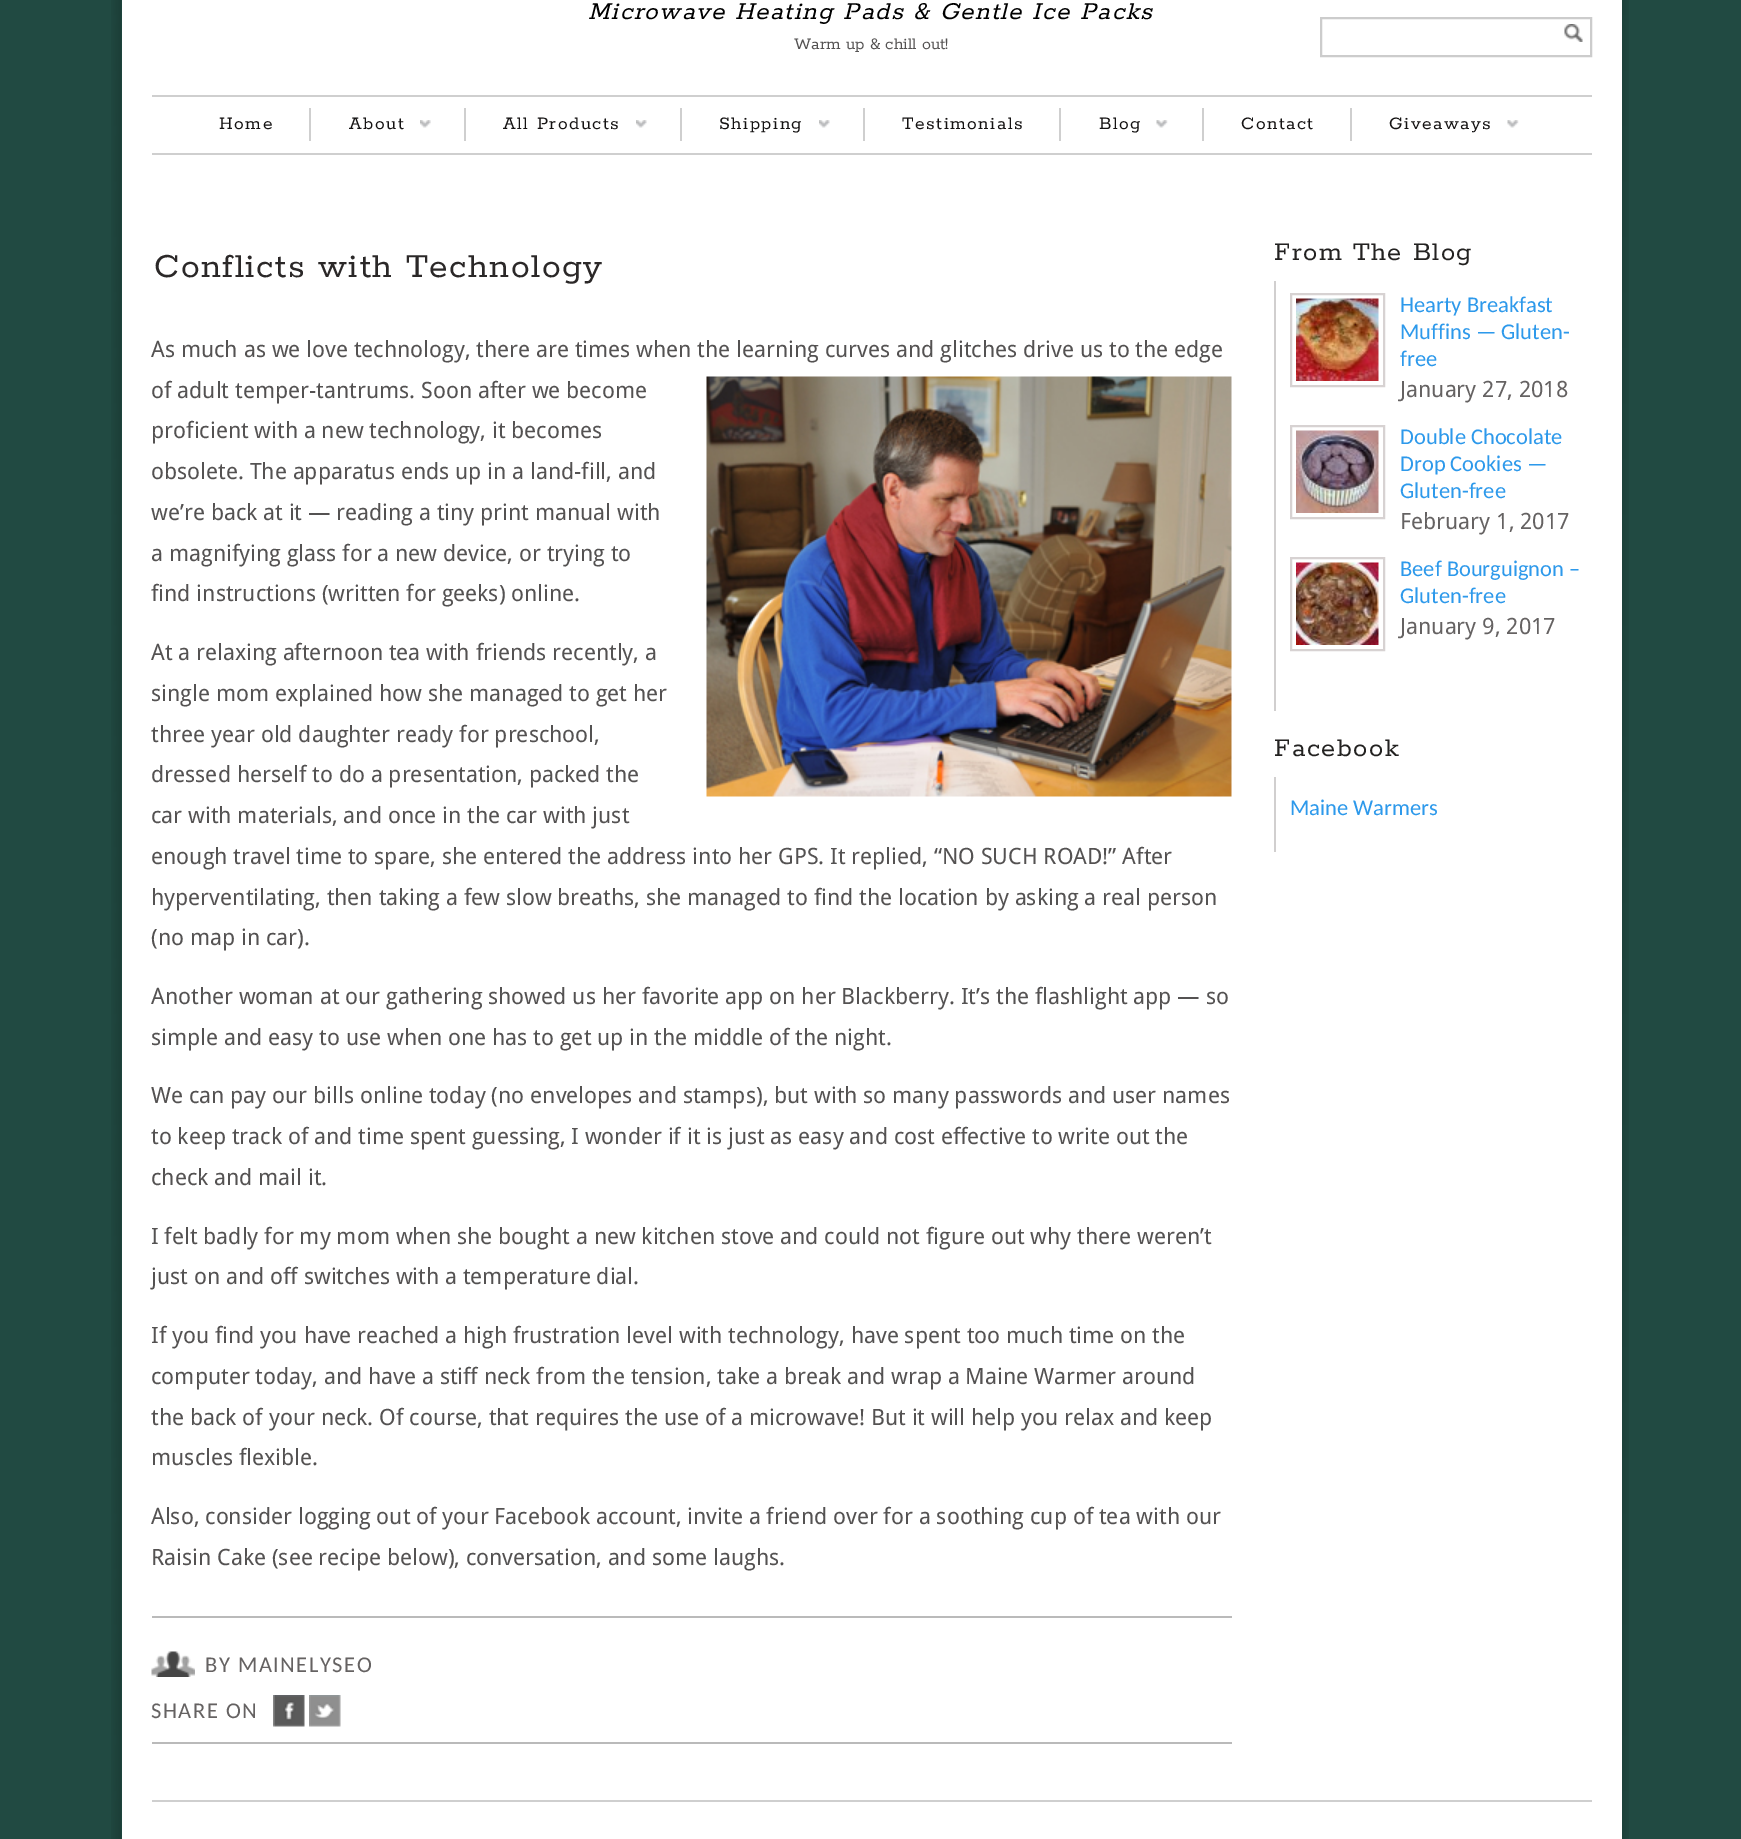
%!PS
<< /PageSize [1741 1839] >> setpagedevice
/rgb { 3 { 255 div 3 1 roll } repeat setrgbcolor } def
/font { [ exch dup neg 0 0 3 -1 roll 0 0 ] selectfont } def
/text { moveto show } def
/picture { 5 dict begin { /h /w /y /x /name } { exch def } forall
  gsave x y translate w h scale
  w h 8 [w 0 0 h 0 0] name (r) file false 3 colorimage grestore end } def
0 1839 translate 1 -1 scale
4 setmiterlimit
33 74 66 rgb
0 0 1741 1839 rectfill
(img_01.rgb) 111 0 1518 1839 picture
255 255 255 rgb
122 0 1500 1839 rectfill
204 204 204 rgb
2 setlinewidth
1321 18 270 38 rectstroke
(img_02.rgb) 1564 24 19 18 picture
207 207 207 rgb
152 95 1440 2 rectfill
152 153 1440 2 rectfill
309 108 2 33 rectfill
(img_03.rgb) 420 120 11 8 picture
464 108 2 33 rectfill
(img_04.rgb) 636 120 11 8 picture
680 108 2 33 rectfill
(img_04.rgb) 819 120 11 8 picture
863 108 2 33 rectfill
1059 108 2 33 rectfill
(img_05.rgb) 1156 120 12 8 picture
1202 108 2 33 rectfill
1350 108 2 33 rectfill
(img_05.rgb) 1507 120 12 8 picture
(img_06.rgb) 706 376 526 421 picture
186 186 186 rgb
152 1616 1080 2 rectfill
152 1742 1080 2 rectfill
(img_07.rgb) 151 1651 44 26 picture
(img_08.rgb) 273 1695 32 32 picture
(img_09.rgb) 309 1695 32 32 picture
209 207 207 rgb
1274 281 2 430 rectfill
215 210 210 rgb
1291 294 93 92 rectstroke
(img_10.rgb) 1296 298 83 83 picture
1291 426 93 92 rectstroke
(img_11.rgb) 1296 430 83 83 picture
1291 558 93 92 rectstroke
(img_12.rgb) 1296 562 83 83 picture
209 207 207 rgb
1274 777 2 75 rectfill
207 207 207 rgb
152 1800 1440 2 rectfill
/Rokkitt-SemiBoldItalic 27 font
0 0 0 rgb
588 19 moveto 1.5 0 (Microwave Heating Pads & Gentle Ice Packs) ashow
/Rokkitt-SemiBold 18 font
84 82 82 rgb
(Warm up & chill out!) 794 49 text
/Rokkitt-SemiBold 19.5 font
21 19 19 rgb
219 129 moveto 1.5 0 (Home) ashow
349 129 moveto 1.5 0 (About) ashow
503 129 moveto 1.5 0 (All Products) ashow
719 129 moveto 1.5 0 (Shipping) ashow
902 129 moveto 1.5 0 (Testimonials) ashow
1099 129 moveto 1.5 0 (Blog) ashow
1241 129 moveto 1.5 0 (Contact) ashow
1389 129 moveto 1.5 0 (Giveaways) ashow
/Rokkitt-SemiBold 37.5 font
43 40 40 rgb
154 277 moveto 1.5 0 (Conflicts with Technology) ashow
/DroidSans-Regular 22.5 font
84 82 82 rgb
(As much as we love technology, there are times when the learning curves and glitches drive us to the edge) 151 357 text
(of adult temper-tantrums. Soon after we become) 151 398 text
(proficient with a new technology, it becomes) 151 438 text
(obsolete. The apparatus ends up in a land-fill, and) 151 479 text
(we’re back at it — reading a tiny print manual with) 151 520 text
(a magnifying glass for a new device, or trying to) 151 561 text
(find instructions \(written for geeks\) online.) 151 601 text
(At a relaxing afternoon tea with friends recently, a) 151 660 text
(single mom explained how she managed to get her) 151 701 text
(three year old daughter ready for preschool,) 151 742 text
(dressed herself to do a presentation, packed the) 151 782 text
(car with materials, and once in the car with just) 151 823 text
(enough travel time to spare, she entered the address into her GPS. It replied, “NO SUCH ROAD!” After) 151 864 text
(hyperventilating, then taking a few slow breaths, she managed to find the location by asking a real person) 151 905 text
(\(no map in car\).) 151 945 text
(Another woman at our gathering showed us her favorite app on her Blackberry. It’s the flashlight app — so) 151 1004 text
(simple and easy to use when one has to get up in the middle of the night.) 151 1045 text
(We can pay our bills online today \(no envelopes and stamps\), but with so many passwords and user names) 151 1103 text
(to keep track of and time spent guessing, I wonder if it is just as easy and cost effective to write out the) 151 1144 text
(check and mail it.) 151 1185 text
(I felt badly for my mom when she bought a new kitchen stove and could not figure out why there weren’t) 151 1244 text
(just on and off switches with a temperature dial.) 151 1284 text
(If you find you have reached a high frustration level with technology, have spent too much time on the) 151 1343 text
(computer today, and have a stiff neck from the tension, take a break and wrap a Maine Warmer around) 151 1384 text
(the back of your neck. Of course, that requires the use of a microwave! But it will help you relax and keep) 151 1425 text
(muscles flexible.) 151 1465 text
(Also, consider logging out of your Facebook account, invite a friend over for a soothing cup of tea with our) 151 1524 text
(Raisin Cake \(see recipe below\), conversation, and some laughs.) 151 1565 text
/Carlito-Regular 22.5 font
101 98 98 rgb
205 1672 moveto 1.5 0 (BY) ashow
238 1672 moveto 1.5 0 (MAINELYSEO) ashow
151 1718 moveto 1.5 0 (SHARE ON) ashow
/Rokkitt-SemiBold 28.5 font
35 34 33 rgb
1274 260 moveto 1.5 0 (From The Blog) ashow
/Carlito-Regular 22.5 font
45 153 235 rgb
(Hearty Breakfast) 1400 312 text
(Muffins — Gluten-) 1400 339 text
(free) 1400 366 text
/DroidSans-Regular 22.5 font
101 98 98 rgb
(January 27, 2018) 1400 397 text
/Carlito-Regular 22.5 font
45 153 235 rgb
(Double Chocolate) 1400 444 text
(Drop Cookies —) 1400 471 text
(Gluten-free) 1400 498 text
/DroidSans-Regular 22.5 font
101 98 98 rgb
(February 1, 2017) 1400 529 text
/Carlito-Regular 22.5 font
45 153 235 rgb
(Beef Bourguignon –) 1400 576 text
(Gluten-free) 1400 603 text
/DroidSans-Regular 22.5 font
101 98 98 rgb
(January 9, 2017) 1400 634 text
/Rokkitt-SemiBold 28.5 font
35 34 33 rgb
1274 756 moveto 1.5 0 (Facebook) ashow
/Carlito-Regular 22.5 font
45 153 235 rgb
(Maine Warmers) 1290 815 text
showpage
